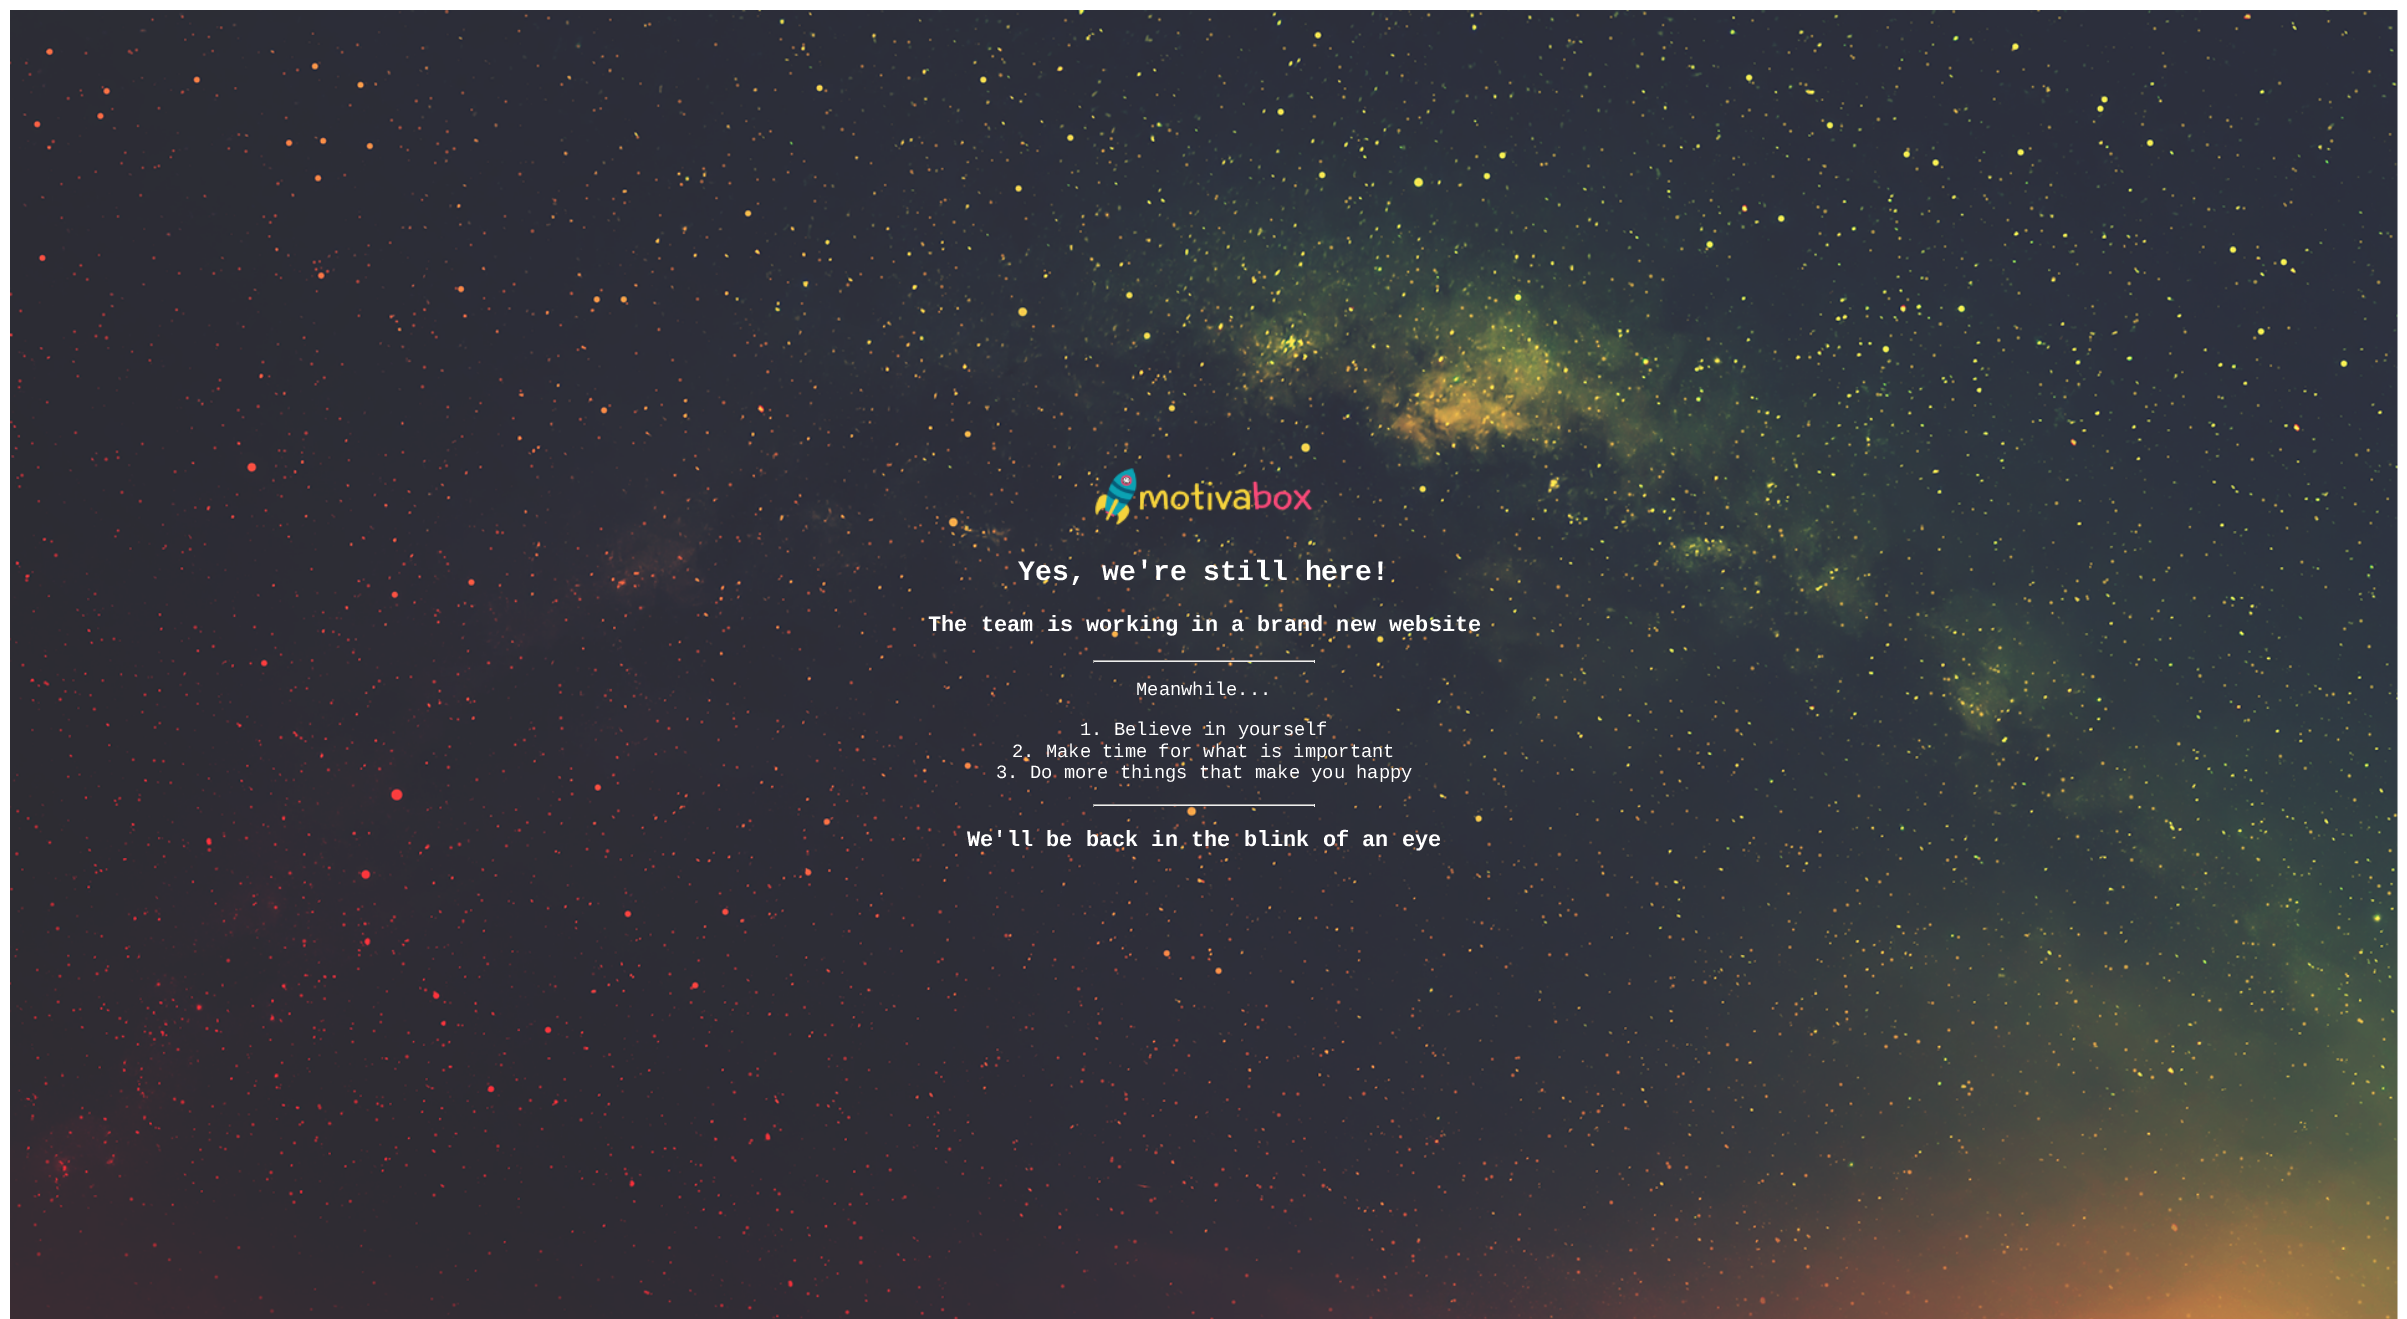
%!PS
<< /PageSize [2407 1319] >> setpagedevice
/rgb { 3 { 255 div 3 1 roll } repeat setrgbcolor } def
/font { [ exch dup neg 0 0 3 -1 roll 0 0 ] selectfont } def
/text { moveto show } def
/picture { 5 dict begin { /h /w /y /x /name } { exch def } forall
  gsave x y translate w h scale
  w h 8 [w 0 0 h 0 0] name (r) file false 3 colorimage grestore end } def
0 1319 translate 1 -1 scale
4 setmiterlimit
255 255 255 rgb
0 0 2407 1319 rectfill
(img_01.rgb) 10 10 2388 1309 picture
(img_02.rgb) 1095 468 218 57 picture
159 159 159 rgb
1093 660 222 1 rectfill
238 238 238 rgb
1314 660 1 3 rectfill
1093 661 222 1 rectfill
159 159 159 rgb
1093 660 1 3 rectfill
1093 804 222 1 rectfill
238 238 238 rgb
1314 804 1 3 rectfill
1093 805 222 1 rectfill
159 159 159 rgb
1093 804 1 3 rectfill
/LiberationMono-Bold 28.1 font
255 255 255 rgb
(Yes, we're still here!) 1018 580 text
/LiberationMono-Bold 21.95 font
(The team is working in a brand new website) 928 631 text
/LiberationMono-Regular 18.75 font
(Meanwhile...) 1136 695 text
(1. Believe in yourself) 1080 735 text
(2. Make time for what is important) 1012 757 text
(3. Do more things that make you happy) 996 778 text
/LiberationMono-Bold 21.95 font
(We'll be back in the blink of an eye) 967 846 text
showpage
